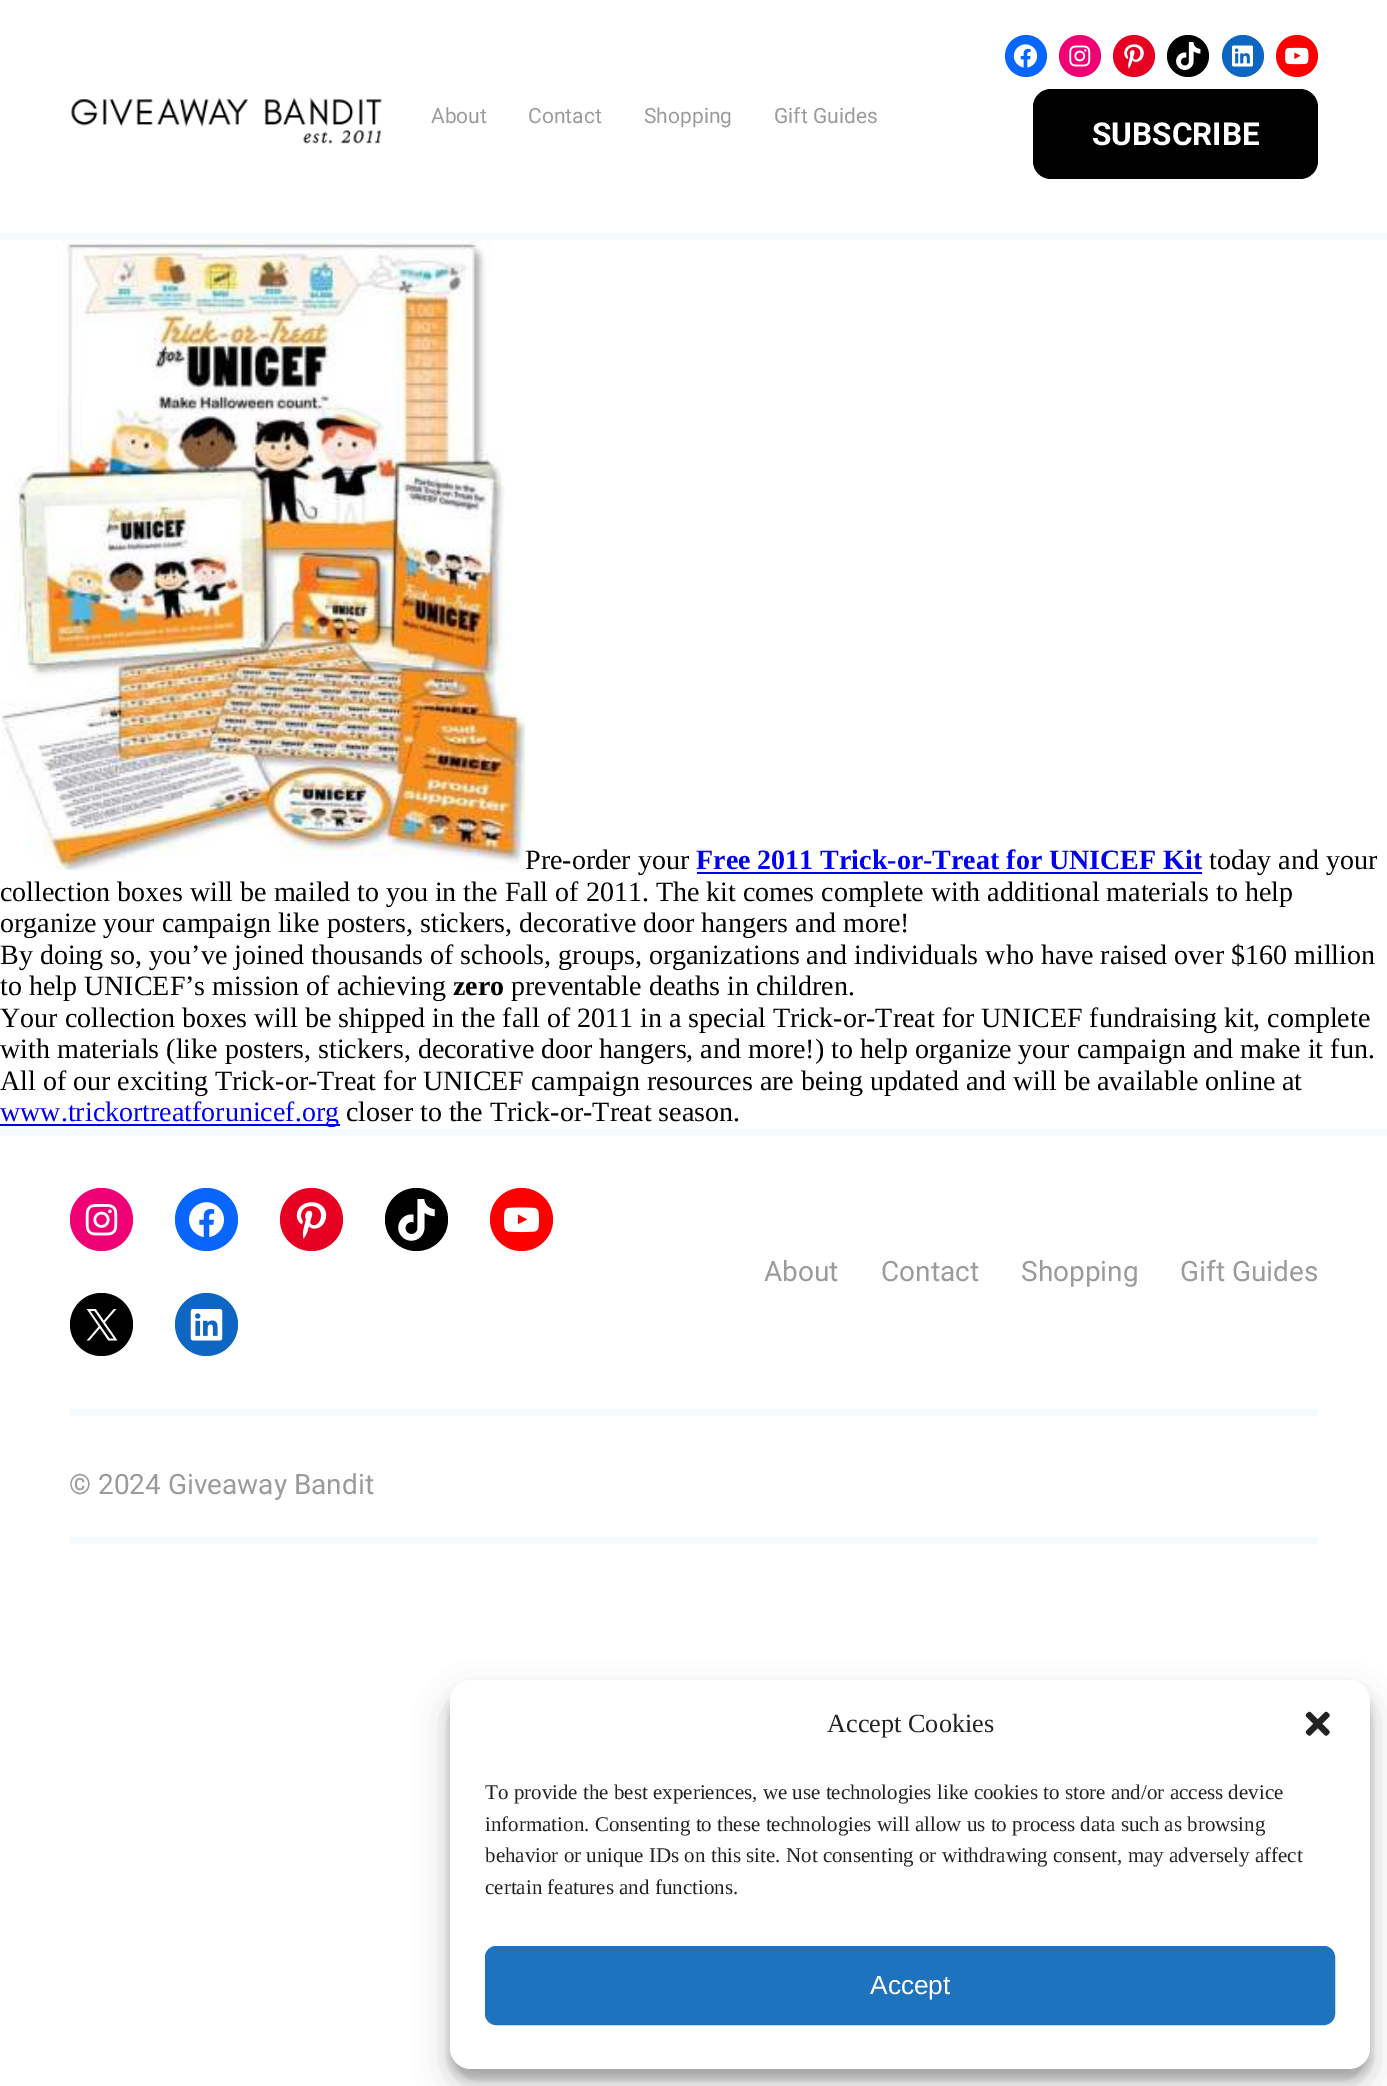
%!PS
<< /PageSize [1387 2086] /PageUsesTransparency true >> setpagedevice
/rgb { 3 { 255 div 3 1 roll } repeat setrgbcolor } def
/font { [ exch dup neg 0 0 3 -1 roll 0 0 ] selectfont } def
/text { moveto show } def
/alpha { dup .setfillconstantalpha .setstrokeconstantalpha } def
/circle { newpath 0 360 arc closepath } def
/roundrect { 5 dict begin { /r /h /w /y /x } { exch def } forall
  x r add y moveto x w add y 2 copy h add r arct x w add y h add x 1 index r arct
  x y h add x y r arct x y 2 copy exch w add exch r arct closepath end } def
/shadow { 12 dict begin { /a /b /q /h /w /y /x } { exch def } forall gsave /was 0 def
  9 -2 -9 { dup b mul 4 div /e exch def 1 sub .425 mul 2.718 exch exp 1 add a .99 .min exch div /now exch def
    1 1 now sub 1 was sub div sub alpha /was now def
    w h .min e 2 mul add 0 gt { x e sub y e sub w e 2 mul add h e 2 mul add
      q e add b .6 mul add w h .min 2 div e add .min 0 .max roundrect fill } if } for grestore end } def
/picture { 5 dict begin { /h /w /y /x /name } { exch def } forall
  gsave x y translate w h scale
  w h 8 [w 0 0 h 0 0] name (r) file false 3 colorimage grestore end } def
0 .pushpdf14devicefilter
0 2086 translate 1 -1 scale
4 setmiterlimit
255 255 255 rgb
0 0 1387 2086 rectfill
(img_01.rgb) 71 97 311 47 picture
8 102 255 rgb
1026 56 21 circle fill
(img_02.rgb) 1013 44 25 24 picture
240 0 117 rgb
1080 56 21 circle fill
(img_03.rgb) 1069 45 22 22 picture
230 1 34 rgb
1134 56 21 circle fill
(img_04.rgb) 1124 44 20 25 picture
0 0 0 rgb
1188 56 21 circle fill
(img_05.rgb) 1176 42 25 28 picture
13 102 194 rgb
1243 56 21 circle fill
(img_06.rgb) 1232 45 21 22 picture
255 0 0 rgb
1297 56 21 circle fill
(img_07.rgb) 1285 47 24 18 picture
0 0 0 rgb
1033 89 285 90 18 roundrect fill
244 249 253 rgb
0 233 1387 7 rectfill
(img_08.rgb) 0 240 525 630 picture
0 0 238 rgb
697 872 505 2 rectfill
0 1124 340 2 rectfill
244 249 253 rgb
0 1129 1387 7 rectfill
70 1537 1248 7 rectfill
70 1409 1248 7 rectfill
240 0 117 rgb
101.5 1219.5 31.5 circle fill
(img_09.rgb) 85 1204 33 32 picture
8 102 255 rgb
206.5 1219.5 31.5 circle fill
(img_10.rgb) 189 1202 35 35 picture
230 1 34 rgb
311.5 1219.5 31.5 circle fill
(img_11.rgb) 296 1202 31 37 picture
0 0 0 rgb
416.5 1219.5 31.5 circle fill
(img_12.rgb) 398 1199 37 42 picture
255 0 0 rgb
521.5 1219.5 31.5 circle fill
(img_13.rgb) 504 1207 35 26 picture
0 0 0 rgb
101.5 1324.5 31.5 circle fill
(img_14.rgb) 86 1309 32 32 picture
13 102 194 rgb
206.5 1324.5 31.5 circle fill
(img_15.rgb) 190 1309 33 32 picture
0 0 0 rgb
450 1691 920 388 21 5 0.23 shadow
450 1698 920 388 21 17.5 0.19 shadow
255 255 255 rgb
450 1680 920 389 21 roundrect fill
(img_16.rgb) 1305 1711 25 25 picture
30 115 190 rgb
486 1947 848 77 10 roundrect gsave fill grestore
2 setlinewidth
stroke
/Roboto-Regular 21 font
155 155 155 rgb
(About) 431 123 text
(Contact) 528 123 text
(Shopping) 644 123 text
(Gift Guides) 774 123 text
/Roboto-Bold 31.5 font
255 255 255 rgb
(SUBSCRIBE) 1092 145 text
/LiberationSerif-Regular 28 font
0 0 0 rgb
(Pre-order your) 525 869 text
/LiberationSerif-Bold 28 font
0 0 238 rgb
(Free 2011 Trick-or-Treat for UNICEF Kit) 696 869 text
/LiberationSerif-Regular 28 font
0 0 0 rgb
(today and your) 1209 869 text
(collection boxes will be mailed to you in the Fall of 2011. The kit comes complete with additional materials to help) 0 901 text
(organize your campaign like posters, stickers, decorative door hangers and more!) 0 932 text
(By doing so, you’ve joined thousands of schools, groups, organizations and individuals who have raised over $160 million) 0 964 text
(to help UNICEF’s mission of achieving) 0 995 text
/LiberationSerif-Bold 28 font
(zero) 453 995 text
/LiberationSerif-Regular 28 font
(preventable deaths in children.) 511 995 text
(Your collection boxes will be shipped in the fall of 2011 in a special Trick-or-Treat for UNICEF fundraising kit, complete) 0 1027 text
(with materials \(like posters, stickers, decorative door hangers, and more!\) to help organize your campaign and make it fun.) 0 1058 text
(All of our exciting Trick-or-Treat for UNICEF campaign resources are being updated and will be available online at) 0 1090 text
0 0 238 rgb
(www.trickortreatforunicef.org) 0 1121 text
0 0 0 rgb
(closer to the Trick-or-Treat season.) 346 1121 text
/Roboto-Regular 28 font
155 155 155 rgb
(About) 764 1281 text
(Contact) 881 1281 text
(Shopping) 1021 1281 text
(Gift Guides) 1180 1281 text
(© 2024 Giveaway Bandit) 69 1494 text
/LiberationSerif-Regular 26.25 font
34 34 34 rgb
(Accept Cookies) 827 1732 text
/LiberationSerif-Regular 21 font
(To provide the best experiences, we use technologies like cookies to store and/or access device) 485 1799 text
(information. Consenting to these technologies will allow us to process data such as browsing) 485 1831 text
(behavior or unique IDs on this site. Not consenting or withdrawing consent, may adversely affect) 485 1862 text
(certain features and functions.) 485 1894 text
/LiberationSans-Regular 26.25 font
255 255 255 rgb
(Accept) 870 1994 text
.poppdf14devicefilter showpage
